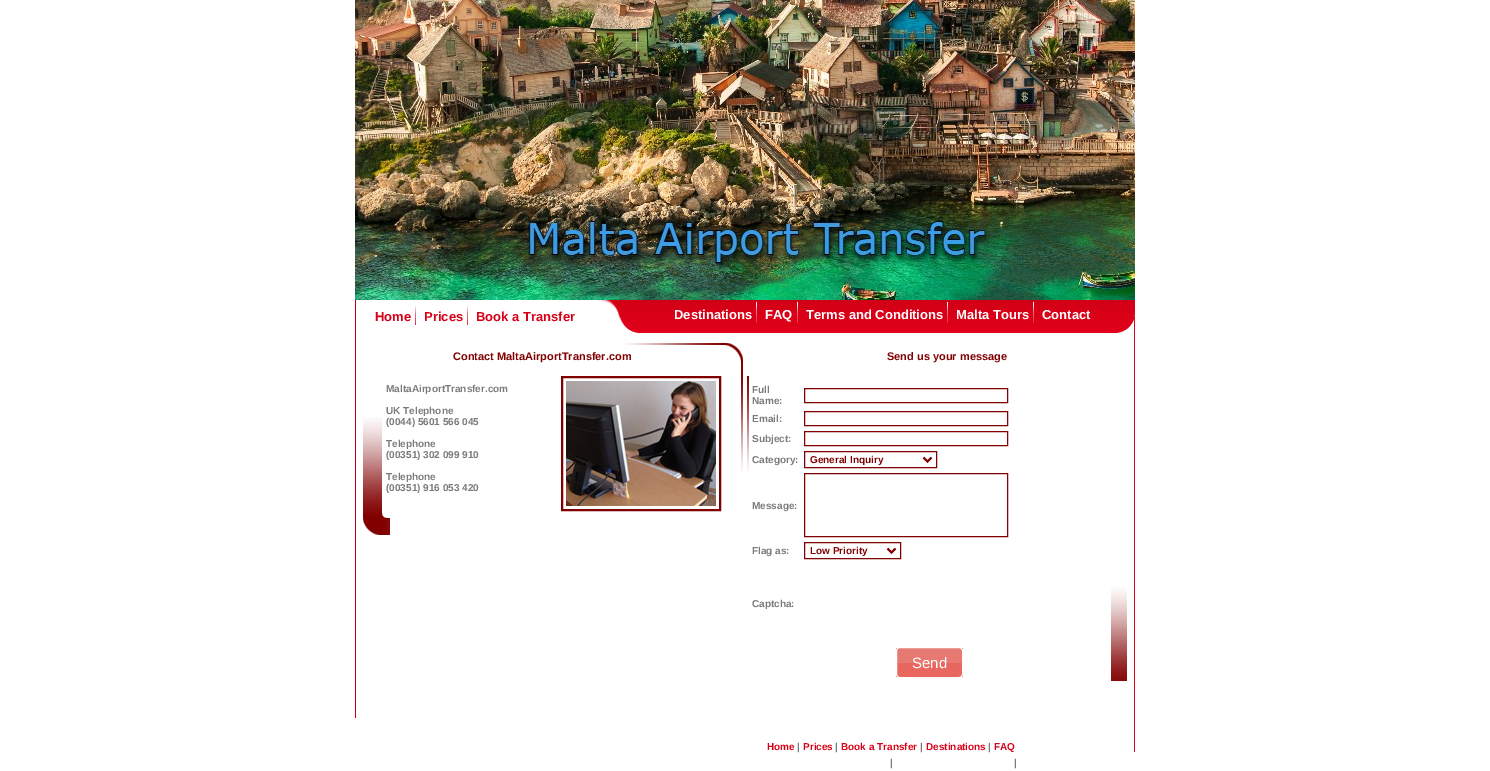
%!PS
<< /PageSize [1490 771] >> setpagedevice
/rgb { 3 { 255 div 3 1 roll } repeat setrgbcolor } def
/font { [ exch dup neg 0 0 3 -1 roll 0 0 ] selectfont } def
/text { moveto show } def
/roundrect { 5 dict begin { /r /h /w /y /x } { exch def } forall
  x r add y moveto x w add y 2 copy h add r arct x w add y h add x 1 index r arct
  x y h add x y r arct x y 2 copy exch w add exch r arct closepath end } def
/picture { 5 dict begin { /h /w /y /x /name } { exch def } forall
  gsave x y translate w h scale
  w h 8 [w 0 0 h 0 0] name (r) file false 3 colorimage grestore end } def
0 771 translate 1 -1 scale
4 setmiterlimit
255 255 255 rgb
0 0 1490 771 rectfill
(img_01.rgb) 355 0 780 300 picture
(img_02.rgb) 415 305 1 20 picture
(img_02.rgb) 467 305 1 20 picture
(img_03.rgb) 595 300 540 33 picture
(img_04.rgb) 756 302 1 21 picture
(img_04.rgb) 797 302 1 21 picture
(img_04.rgb) 947 302 1 21 picture
(img_04.rgb) 1033 302 1 21 picture
195 0 19 rgb
355 300 1 418 rectfill
(img_05.rgb) 624 343 98 2 picture
(img_06.rgb) 722 343 21 20 picture
128 2 3 rgb
741 363 2 13 rectfill
(img_07.rgb) 363 417 19 94 picture
128 0 0 rgb
2 setlinewidth
562 377 158 133 rectstroke
(img_08.rgb) 566 381 150 125 picture
(img_09.rgb) 741 376 2 98 picture
(img_10.rgb) 363 511 27 24 picture
(img_09.rgb) 747 376 2 98 picture
129 2 2 rgb
1 setlinewidth
804.5 388.5 203 14 rectstroke
804.5 411.5 203 14 rectstroke
804.5 431.5 203 14 rectstroke
804.5 451.5 132 16 rectstroke
2 setlinewidth
923.5 457.5 moveto 4 4 rlineto 4 -4 rlineto stroke
1 setlinewidth
804.5 473.5 203 63 rectstroke
804.5 542.5 96 16 rectstroke
2 setlinewidth
887.5 548.5 moveto 4 4 rlineto 4 -4 rlineto stroke
gsave
896 647 67 31 4 roundrect clip newpath
gsave 896 648 moveto 67 0 rlineto 0 29 rlineto -67 0 rlineto closepath clip newpath
<< /ShadingType 2 /ColorSpace /DeviceRGB /Coords [930 648 930 677] /Extend [true true] /Function << /FunctionType 3 /Domain [0 1] /Functions [<< /FunctionType 2 /Domain [0 1] /C0 [0.894 0.408 0.365] /C1 [0.894 0.408 0.365] /N 1 >> << /FunctionType 2 /Domain [0 1] /C0 [0.894 0.408 0.365] /C1 [0.922 0.404 0.369] /N 1 >>] /Bounds [0.05] /Encode [0 1 0 1] >> >> shfill grestore
grestore
230 122 115 rgb
900 663 moveto 62 0 rlineto 0 -16 4 -15 -13 -15 rcurveto -39 0 rlineto -17 0 -13 -1 -13 15 rcurveto closepath fill
255 255 255 rgb
1 setlinewidth
896.5 647.5 66 30 3.5 roundrect stroke
(img_11.rgb) 1111 587 16 94 picture
220 4 28 rgb
1134 333 1 419 rectfill
/LiberationSans-Bold 13 font
216 0 23 rgb
(Home) 375 321 text
(Prices) 424 321 text
(Book a Transfer) 476 321 text
255 255 255 rgb
(Destinations) 674 319 text
(FAQ) 765 319 text
(Terms and Conditions) 806 319 text
(Malta Tours) 956 319 text
(Contact) 1042 319 text
/LiberationSans-Bold 11 font
129 2 2 rgb
(Contact MaltaAirportTransfer.com) 453 360 text
/LiberationSans-Bold 10 font
124 122 122 rgb
(MaltaAirportTransfer.com) 386 392 text
(UK Telephone) 386 414 text
(\(0044\) 5601 566 045) 386 425 text
(Telephone) 386 447 text
(\(00351\) 302 099 910) 386 458 text
(Telephone) 386 480 text
(\(00351\) 916 053 420) 386 491 text
/LiberationSans-Bold 11 font
129 2 2 rgb
(Send us your message) 887 360 text
/LiberationSans-Bold 10 font
124 122 122 rgb
(Full) 752 393 text
(Name:) 752 404 text
(Email:) 752 422 text
(Subject:) 752 442 text
(Category:) 752 463 text
129 2 2 rgb
(General Inquiry) 810 463 text
124 122 122 rgb
(Message:) 752 509 text
(Flag as:) 752 554 text
129 2 2 rgb
(Low Priority) 810 554 text
124 122 122 rgb
(Captcha:) 752 607 text
/LiberationSans-Regular 15 font
255 255 255 rgb
(Send) 912 668 text
/LiberationSans-Bold 10 font
216 0 23 rgb
(Home) 767 750 text
124 122 122 rgb
(|) 797 750 text
216 0 23 rgb
(Prices) 803 750 text
124 122 122 rgb
(|) 835 750 text
216 0 23 rgb
(Book a Transfer) 841 750 text
124 122 122 rgb
(|) 920 750 text
216 0 23 rgb
(Destinations) 926 750 text
124 122 122 rgb
(|) 988 750 text
216 0 23 rgb
(FAQ) 994 750 text
124 122 122 rgb
(|) 890 766 text
(|) 1014 766 text
showpage
